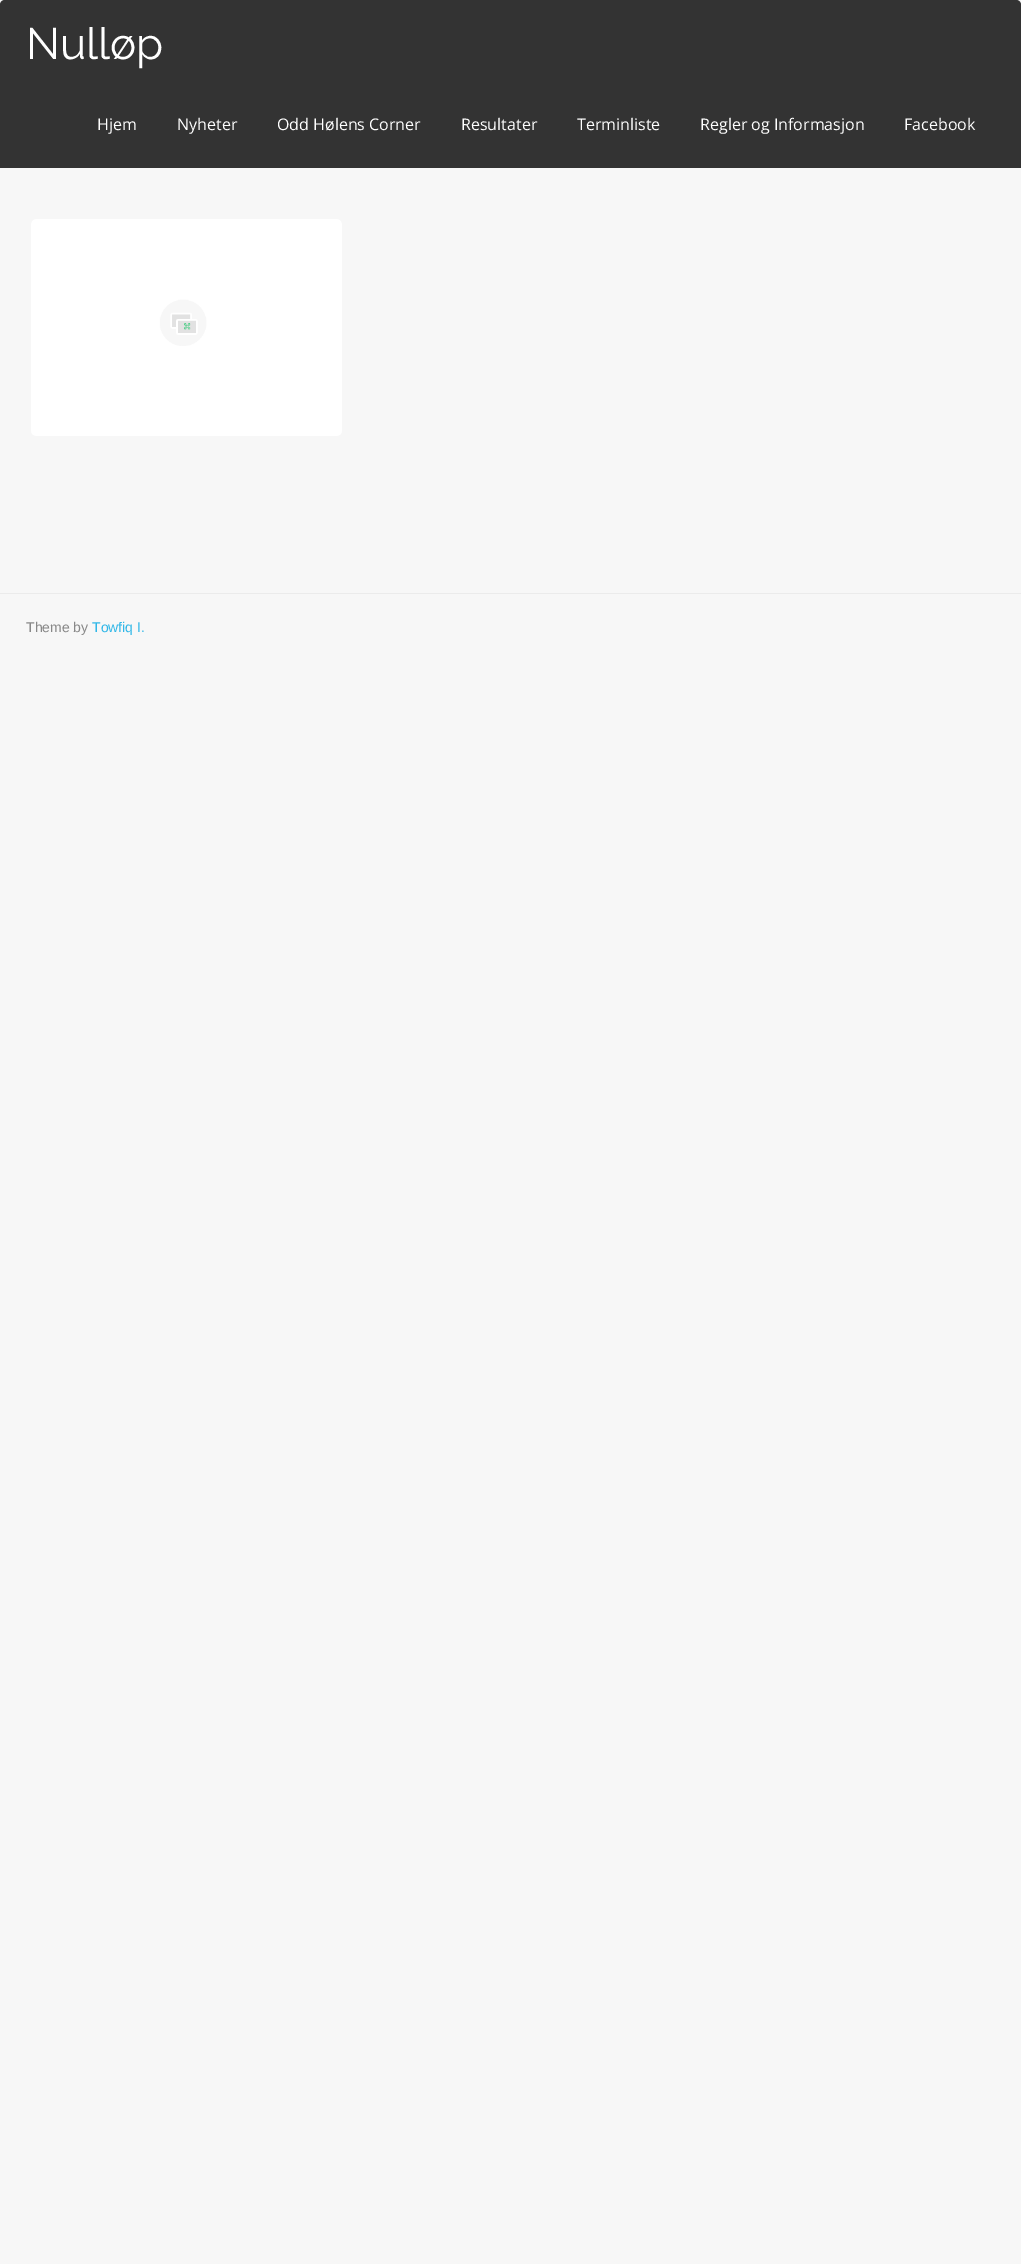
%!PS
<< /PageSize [1021 2264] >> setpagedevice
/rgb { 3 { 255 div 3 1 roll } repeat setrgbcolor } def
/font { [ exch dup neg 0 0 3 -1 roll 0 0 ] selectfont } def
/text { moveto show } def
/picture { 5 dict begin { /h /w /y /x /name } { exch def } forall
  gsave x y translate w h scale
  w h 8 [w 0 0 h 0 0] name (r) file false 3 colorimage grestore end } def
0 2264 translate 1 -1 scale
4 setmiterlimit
247 247 247 rgb
0 0 1021 2264 rectfill
51 51 51 rgb
5 0 moveto 1011 0 rlineto 3 0 5 2 5 5 rcurveto 0 163 rlineto -1021 0 rlineto 0 -163 rlineto 0 -3 2 -5 5 -5 rcurveto closepath fill
(img_01.rgb) 31 219 311 217 picture
235 235 235 rgb
0 593 1021 1 rectfill
/Raleway-Thin 44 font
255 255 255 rgb
(Nulløp) 26 59 text
/OpenSans-Regular 16 font
(Hjem) 97 130 text
(Nyheter) 177 130 text
(Odd Hølens Corner) 277 130 text
(Resultater) 461 130 text
(Terminliste) 577 130 text
(Regler og Informasjon) 700 130 text
(Facebook) 904 130 text
/LiberationSans-Regular 14 font
136 136 136 rgb
(Theme by) 26 632 text
48 183 232 rgb
(Towfiq I.) 92 632 text
showpage
